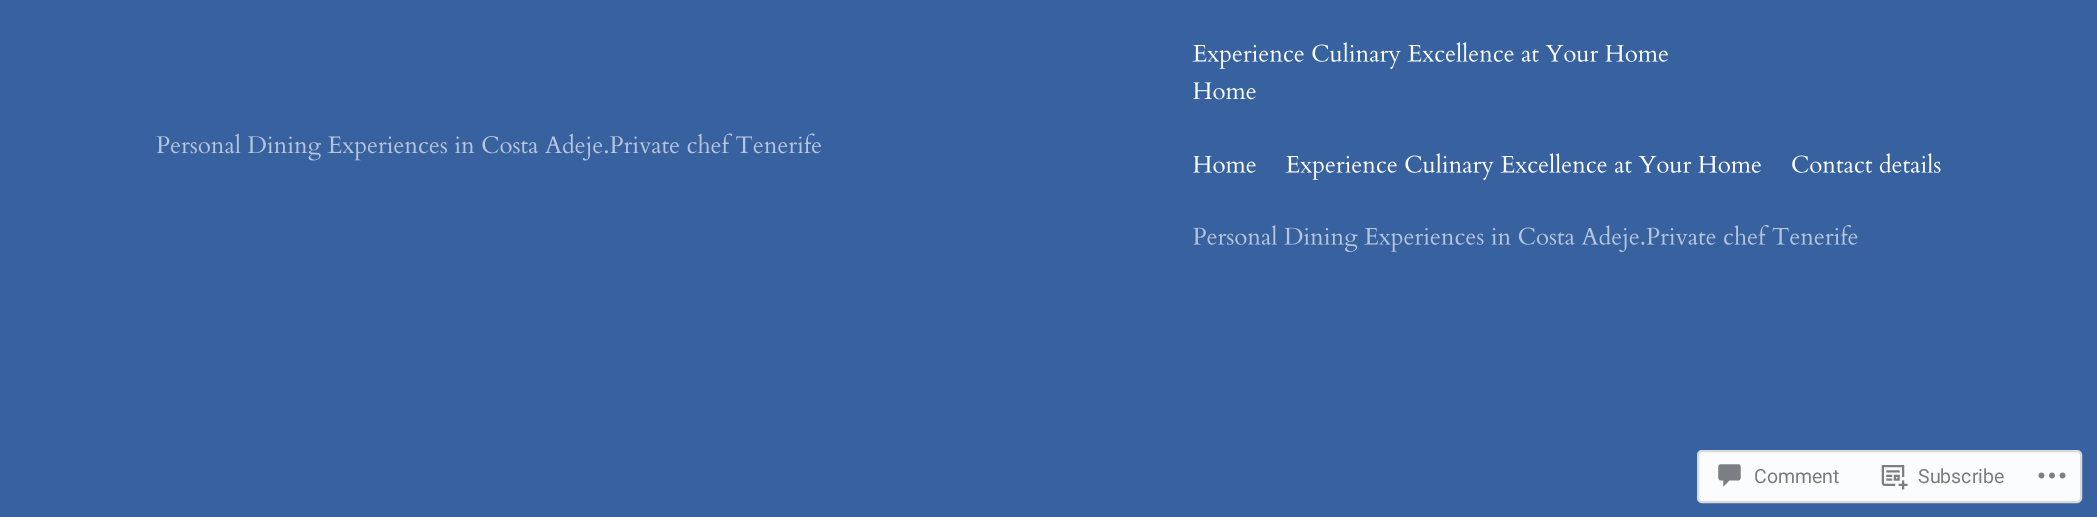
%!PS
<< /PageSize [2097 517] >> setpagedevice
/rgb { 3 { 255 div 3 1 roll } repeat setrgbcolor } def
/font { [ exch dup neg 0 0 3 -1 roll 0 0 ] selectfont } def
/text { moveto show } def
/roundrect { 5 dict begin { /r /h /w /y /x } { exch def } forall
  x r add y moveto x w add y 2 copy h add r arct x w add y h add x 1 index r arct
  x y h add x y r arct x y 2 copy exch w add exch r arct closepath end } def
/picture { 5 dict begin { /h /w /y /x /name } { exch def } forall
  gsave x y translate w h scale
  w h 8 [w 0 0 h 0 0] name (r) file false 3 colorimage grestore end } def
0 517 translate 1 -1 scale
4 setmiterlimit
56 98 159 rgb
0 0 2097 517 rectfill
(img_01.rgb) 156 133 665 28 picture
(img_02.rgb) 1192 42 476 27 picture
(img_03.rgb) 1193 82 63 18 picture
(img_04.rgb) 1193 156 63 17 picture
(img_02.rgb) 1285 153 476 27 picture
(img_05.rgb) 1792 153 149 20 picture
(img_06.rgb) 1193 224 665 28 picture
251 252 253 rgb
1698 451 383 51 4 roundrect gsave fill grestore
217 218 221 rgb
2 setlinewidth
stroke
(img_07.rgb) 1718 464 23 23 picture
(img_08.rgb) 1881 465 27 25 picture
(img_09.rgb) 2038 472 28 7 picture
/Roboto-Regular 19.5 font
119 123 131 rgb
(Comment) 1754 483 text
(Subscribe) 1918 483 text
showpage
